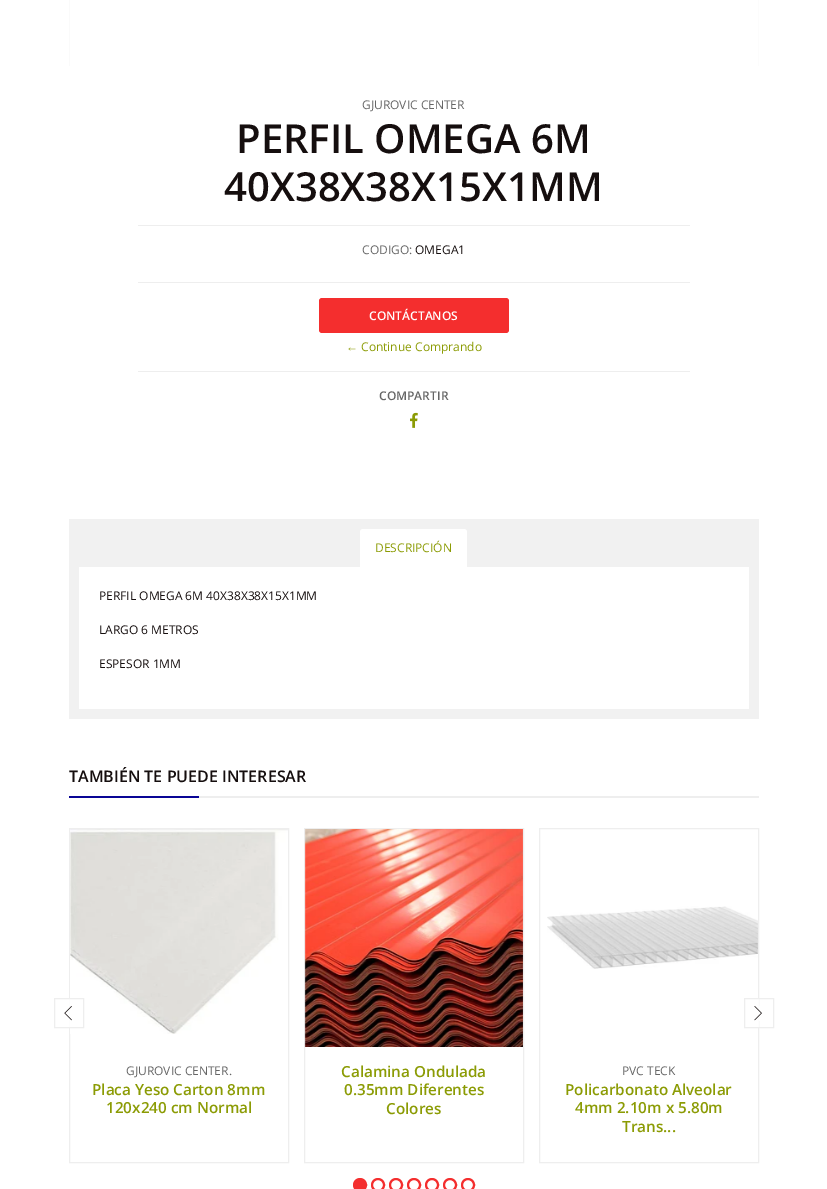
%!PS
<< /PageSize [827 1189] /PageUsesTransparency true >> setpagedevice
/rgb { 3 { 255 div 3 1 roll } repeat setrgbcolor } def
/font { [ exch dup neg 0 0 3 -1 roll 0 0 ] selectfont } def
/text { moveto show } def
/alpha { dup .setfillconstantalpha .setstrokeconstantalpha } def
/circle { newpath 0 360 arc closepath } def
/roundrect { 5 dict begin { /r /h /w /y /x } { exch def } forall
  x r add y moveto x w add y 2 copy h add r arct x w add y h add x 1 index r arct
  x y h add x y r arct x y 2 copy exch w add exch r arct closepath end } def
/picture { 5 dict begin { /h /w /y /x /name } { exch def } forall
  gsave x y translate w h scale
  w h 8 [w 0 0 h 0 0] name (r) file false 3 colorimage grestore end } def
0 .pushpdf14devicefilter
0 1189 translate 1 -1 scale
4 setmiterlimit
255 255 255 rgb
0 0 827 1189 rectfill
(img_01.rgb) 69 0 690 66 picture
238 238 238 rgb
138 225 552 1 rectfill
138 282 552 1 rectfill
138 371 552 1 rectfill
244 46 46 rgb
319 298 190 35 3 roundrect fill
(img_02.rgb) 410 412 8 16 picture
241 241 241 rgb
69 519 690 200 rectfill
255 255 255 rgb
363 529 moveto 101 0 rlineto 1.5 0 3 1.5 3 3 rcurveto 0 35 rlineto -107 0 rlineto 0 -35 rlineto 0 -1.5 1.5 -3 3 -3 rcurveto closepath fill
79 567 670 142 rectfill
238 238 238 rgb
199 796 560 2 rectfill
9 5 149 rgb
69 796 130 2 rectfill
238 238 238 rgb
69.5 828.5 219 334 rectstroke
0.9 alpha
255 255 255 rgb
69 999 1 28 rectfill
1 alpha
(img_05.rgb) 70 829 218 205 picture
238 238 238 rgb
54.5 998.5 29 29 rectstroke
(img_03.rgb) 64 1006 8 15 picture
539.5 828.5 219 334 rectstroke
0.9 alpha
255 255 255 rgb
758 999 1 28 rectfill
1 alpha
238 238 238 rgb
744.5 998.5 29 29 rectstroke
(img_04.rgb) 754 1006 8 15 picture
304.5 828.5 219 334 rectstroke
(img_06.rgb) 304 829 219 218 picture
(img_07.rgb) 547 906 211 63 picture
244 46 46 rgb
360 1185 6 circle gsave fill grestore
2 setlinewidth
stroke
378 1185 6 circle stroke
396 1185 6 circle stroke
414 1185 6 circle stroke
432 1185 6 circle stroke
450 1185 6 circle stroke
468 1185 6 circle stroke
/OpenSans-Regular 12 font
102 102 102 rgb
(GJUROVIC CENTER) 362 109 text
/OpenSans-SemiBold 40 font
21 14 14 rgb
(PERFIL OMEGA 6M) 236 153 text
(40X38X38X15X1MM) 224 201 text
/OpenSans-Regular 12 font
102 102 102 rgb
(CODIGO:) 362 254 text
21 14 14 rgb
(OMEGA1) 415 254 text
/OpenSans-SemiBold 12 font
255 255 255 rgb
(CONTÁCTANOS) 369 320 text
/LiberationSerif-Regular 12 font
139 155 4 rgb
(←) 346 351 text
/OpenSans-Regular 12 font
(Continue Comprando) 361 351 text
/OpenSans-SemiBold 12 font
102 102 102 rgb
(COMPARTIR) 379 400 text
/OpenSans-Regular 12 font
139 155 4 rgb
(DESCRIPCIÓN) 375 552 text
21 14 14 rgb
(PERFIL OMEGA 6M 40X38X38X15X1MM) 99 600 text
(LARGO 6 METROS) 99 634 text
(ESPESOR 1MM) 99 668 text
/OpenSans-SemiBold 16 font
(TAMBIÉN TE PUEDE INTERESAR) 69 782 text
/OpenSans-Regular 12 font
102 102 102 rgb
(GJUROVIC CENTER.) 126 1075 text
/OpenSans-SemiBold 15.25 font
139 155 4 rgb
(Placa Yeso Carton 8mm) 92 1095 text
(120x240 cm Normal) 106 1113 text
(Calamina Ondulada) 341 1077 text
(0.35mm Diferentes) 344 1095 text
(Colores) 386 1114 text
/OpenSans-Regular 12 font
102 102 102 rgb
(PVC TECK) 622 1075 text
/OpenSans-SemiBold 15.25 font
139 155 4 rgb
(Policarbonato Alveolar) 565 1095 text
(4mm 2.10m x 5.80m) 575 1113 text
(Trans...) 622 1132 text
.poppdf14devicefilter showpage
